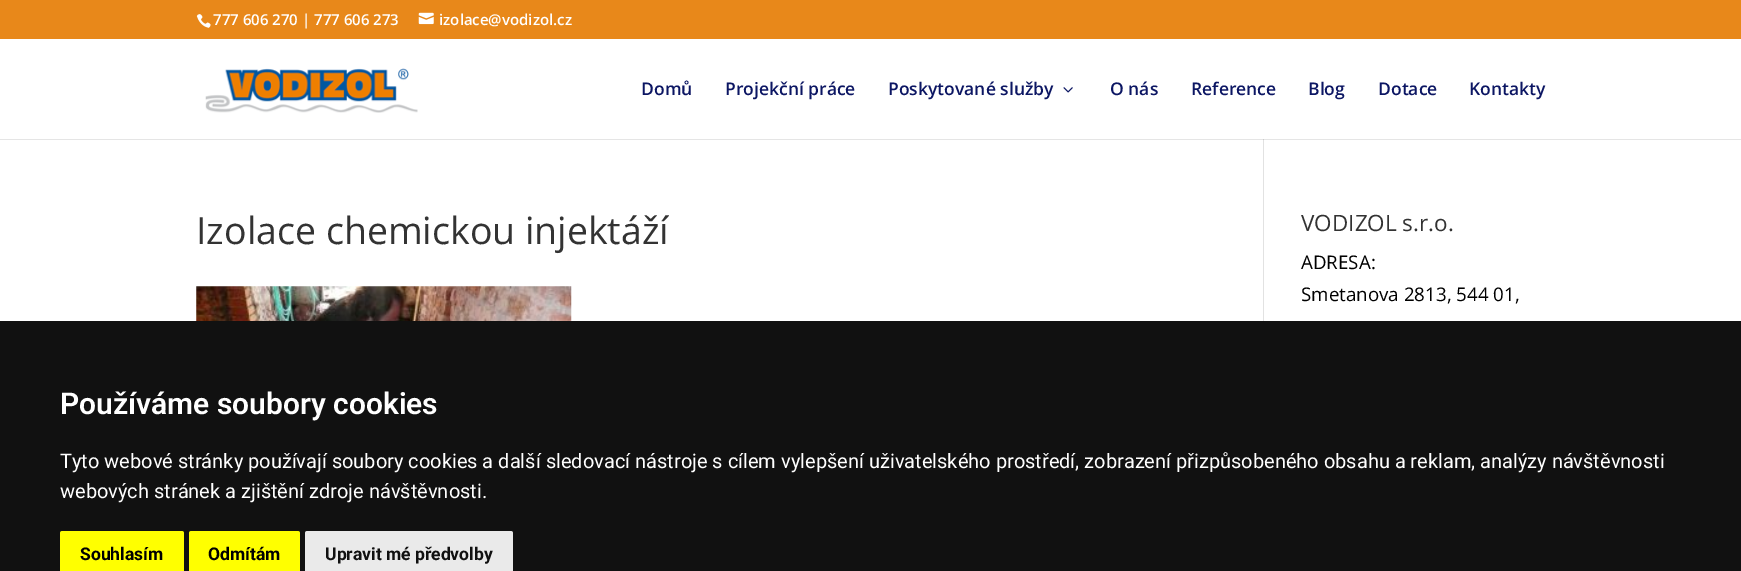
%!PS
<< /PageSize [1741 571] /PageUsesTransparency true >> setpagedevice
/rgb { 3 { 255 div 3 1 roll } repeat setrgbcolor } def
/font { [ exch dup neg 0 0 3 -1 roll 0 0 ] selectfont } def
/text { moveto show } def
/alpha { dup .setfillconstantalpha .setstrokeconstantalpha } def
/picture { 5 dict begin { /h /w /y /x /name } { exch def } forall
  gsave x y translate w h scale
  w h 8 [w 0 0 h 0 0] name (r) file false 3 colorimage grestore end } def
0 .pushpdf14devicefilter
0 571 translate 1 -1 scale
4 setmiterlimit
255 255 255 rgb
0 0 1741 571 rectfill
232 136 26 rgb
0 0 1741 39 rectfill
(img_01.rgb) 196 14 15 14 picture
(img_02.rgb) 418 12 16 13 picture
226 226 226 rgb
1263 139 1 182 rectfill
0.1 alpha
0 0 0 rgb
0 139 1741 1 rectfill
1 alpha
(img_03.rgb) 205 68 213 45 picture
(img_04.rgb) 1063 87 10 6 picture
(img_05.rgb) 196 286 376 35 picture
17 17 17 rgb
0 321 1741 250 rectfill
255 255 0 rgb
62.5 531 moveto 119 0 rlineto 1.5 0 2.5 1 2.5 2.5 rcurveto 0 37.5 rlineto -124 0 rlineto 0 -37.5 rlineto 0 -1.5 1 -2.5 2.5 -2.5 rcurveto closepath fill
191.5 531 moveto 106 0 rlineto 1.5 0 2.5 1 2.5 2.5 rcurveto 0 37.5 rlineto -111 0 rlineto 0 -37.5 rlineto 0 -1.5 1 -2.5 2.5 -2.5 rcurveto closepath fill
234 234 234 rgb
307.5 531 moveto 203 0 rlineto 1.5 0 2.5 1 2.5 2.5 rcurveto 0 37.5 rlineto -208 0 rlineto 0 -37.5 rlineto 0 -1.5 1 -2.5 2.5 -2.5 rcurveto closepath fill
/OpenSans-SemiBold 15 font
255 255 255 rgb
(777 606 270 | 777 606 273) 213 25 text
(izolace@vodizol.cz) 439 25 text
/OpenSans-SemiBold 17.5 font
12 22 99 rgb
(Domů) 641 95 text
(Projekční práce) 725 95 text
(Poskytované služby) 888 95 text
(O nás) 1110 95 text
(Reference) 1191 95 text
(Blog) 1308 95 text
(Dotace) 1378 95 text
(Kontakty) 1469 95 text
/OpenSans-Regular 37.5 font
51 51 51 rgb
(Izolace chemickou injektáží) 196 244 text
/OpenSans-Regular 22.5 font
(VODIZOL s.r.o.) 1301 231 text
/OpenSans-Regular 18.75 font
0 0 0 rgb
(ADRESA:) 1301 269 text
(Smetanova 2813, 544 01,) 1301 301 text
/Roboto-SemiBold 30 font
255 255 255 rgb
(Používáme soubory cookies) 60 414 text
/Roboto-Regular 20 font
(Tyto webové stránky používají soubory cookies a další sledovací nástroje s cílem vylepšení uživatelského prostředí, zobrazení přizpůsobeného obsahu a reklam, analýzy návštěvnosti) 60 468 text
(webových stránek a zjištění zdroje návštěvnosti.) 60 498 text
/Roboto-Bold 17.5 font
0 0 0 rgb
(Souhlasím) 80 560 text
(Odmítám) 208 560 text
17 17 17 rgb
(Upravit mé předvolby) 325 560 text
.poppdf14devicefilter showpage
